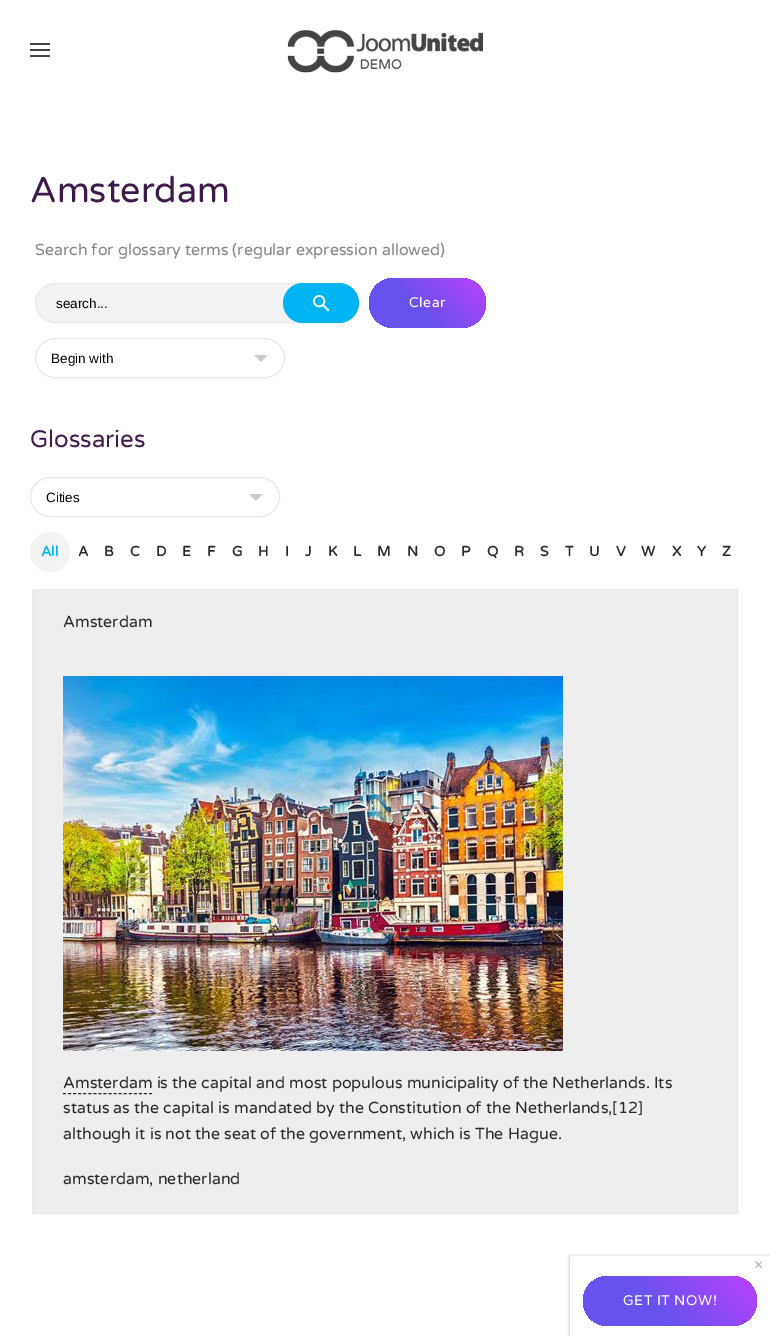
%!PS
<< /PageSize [770 1336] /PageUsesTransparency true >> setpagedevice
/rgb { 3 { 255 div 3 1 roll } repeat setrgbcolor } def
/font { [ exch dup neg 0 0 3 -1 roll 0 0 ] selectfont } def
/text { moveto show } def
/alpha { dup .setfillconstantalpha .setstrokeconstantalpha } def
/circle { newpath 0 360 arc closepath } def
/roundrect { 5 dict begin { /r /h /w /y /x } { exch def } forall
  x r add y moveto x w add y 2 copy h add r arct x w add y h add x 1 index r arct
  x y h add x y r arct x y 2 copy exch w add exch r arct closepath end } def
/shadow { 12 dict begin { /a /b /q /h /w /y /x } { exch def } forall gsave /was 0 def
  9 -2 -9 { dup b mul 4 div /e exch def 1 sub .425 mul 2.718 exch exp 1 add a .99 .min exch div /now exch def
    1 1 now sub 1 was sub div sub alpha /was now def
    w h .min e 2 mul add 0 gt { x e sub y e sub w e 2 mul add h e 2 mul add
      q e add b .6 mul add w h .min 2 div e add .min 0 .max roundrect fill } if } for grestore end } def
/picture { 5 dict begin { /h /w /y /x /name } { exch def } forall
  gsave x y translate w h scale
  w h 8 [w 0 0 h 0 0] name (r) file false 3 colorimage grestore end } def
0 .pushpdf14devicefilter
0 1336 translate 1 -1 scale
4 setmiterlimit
255 255 255 rgb
0 0 770 1336 rectfill
68 68 68 rgb
30 43 20 2 rectfill
30 49 20 2 rectfill
30 55 20 2 rectfill
(img_01.rgb) 287 30 197 43 picture
244 243 244 rgb
35.5 283.5 323 39 19.5 roundrect gsave fill grestore
233 233 233 rgb
stroke
0 180 242 rgb
283 283 76 40 20 roundrect fill
(img_02.rgb) 313 295 17 17 picture
gsave 369 278 117 50 25 roundrect clip newpath
<< /ShadingType 2 /ColorSpace /DeviceRGB /Coords [386 345 469 261] /Extend [true true] /Function << /FunctionType 3 /Domain [0 1] /Functions [<< /FunctionType 2 /Domain [0 1] /C0 [0.408 0.322 0.929] /C1 [0.408 0.322 0.929] /N 1 >> << /FunctionType 2 /Domain [0 1] /C0 [0.408 0.322 0.929] /C1 [0.733 0.251 1] /N 1 >>] /Bounds [0.4] /Encode [0 1 0 1] >> >> shfill grestore
(img_03.rgb) 254 355 14 7 picture
233 233 233 rgb
35.5 338.5 249 39 19.5 roundrect stroke
(img_03.rgb) 249 494 14 7 picture
30.5 477.5 249 39 19.5 roundrect stroke
244 243 244 rgb
50 552 20 circle fill
238 238 238 rgb
32.5 589.5 moveto 705 0 rlineto 0 624 rlineto -705 0 rlineto closepath gsave fill grestore
233 233 233 rgb
stroke
(img_04.rgb) 63 676 500 375 picture
43 42 41 rgb
[3 2.06] 0 setdash
63 1093.5 moveto 89 0 rlineto stroke
gsave
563 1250 moveto 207 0 rlineto 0 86 rlineto -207 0 rlineto closepath 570 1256 moveto 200 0 rlineto 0 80 rlineto -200 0 rlineto closepath eoclip newpath
0 0 1 rgb
570 1257 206 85 0 2 0.3 shadow
grestore
gsave 583 1276 174 50 25 roundrect clip newpath
<< /ShadingType 2 /ColorSpace /DeviceRGB /Coords [614 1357 726 1245] /Extend [true true] /Function << /FunctionType 3 /Domain [0 1] /Functions [<< /FunctionType 2 /Domain [0 1] /C0 [0.408 0.322 0.929] /C1 [0.408 0.322 0.929] /N 1 >> << /FunctionType 2 /Domain [0 1] /C0 [0.408 0.322 0.929] /C1 [0.733 0.251 1] /N 1 >>] /Bounds [0.4] /Encode [0 1 0 1] >> >> shfill grestore
/VarelaRound-Regular 35.75 font
61 26 74 rgb
(Amsterdam) 30 202 text
/VarelaRound-Regular 16 font
134 133 133 rgb
(Search for glossary terms \(regular expression allowed\)) 35 255 text
/LiberationSans-Regular 13.5 font
0 0 0 rgb
(search...) 56 308 text
/VarelaRound-Regular 14 font
255 255 255 rgb
409 307 moveto 0.5 0 (Clear) ashow
/LiberationSans-Regular 13.5 font
0 0 0 rgb
(Begin with) 51 363 text
/VarelaRound-Regular 24 font
61 26 74 rgb
(Glossaries) 30 447 text
/LiberationSans-Regular 13.5 font
0 0 0 rgb
(Cities) 46 502 text
/VarelaRound-Bold 14 font
0 180 242 rgb
(All) 41 556 text
43 42 41 rgb
(A) 78 556 text
(B) 104 556 text
(C) 130 556 text
(D) 156 556 text
(E) 182 556 text
(F) 207 556 text
(G) 232 556 text
(H) 258 556 text
(I) 285 556 text
(J) 305 556 text
(K) 328 556 text
(L) 353 556 text
(M) 377 556 text
(N) 407 556 text
(O) 434 556 text
(P) 461 556 text
(Q) 487 556 text
(R) 514 556 text
(S) 540 556 text
(T) 565 556 text
(U) 589 556 text
(V) 616 556 text
(W) 641 556 text
(X) 672 556 text
(Y) 697 556 text
(Z) 722 556 text
/VarelaRound-Regular 16 font
(Amsterdam) 63 627 text
(Amsterdam is the capital and most populous municipality of the Netherlands. Its) 63 1088 text
(status as the capital is mandated by the Constitution of the Netherlands,[12]) 63 1113 text
(although it is not the seat of the government, which is The Hague.) 63 1139 text
(amsterdam, netherland) 63 1184 text
/LiberationSans-Regular 16 font
174 174 174 rgb
(×) 754 1270 text
/VarelaRound-Regular 14 font
255 255 255 rgb
623 1305 moveto 0.5 0 (GET IT NOW!) ashow
.poppdf14devicefilter showpage
